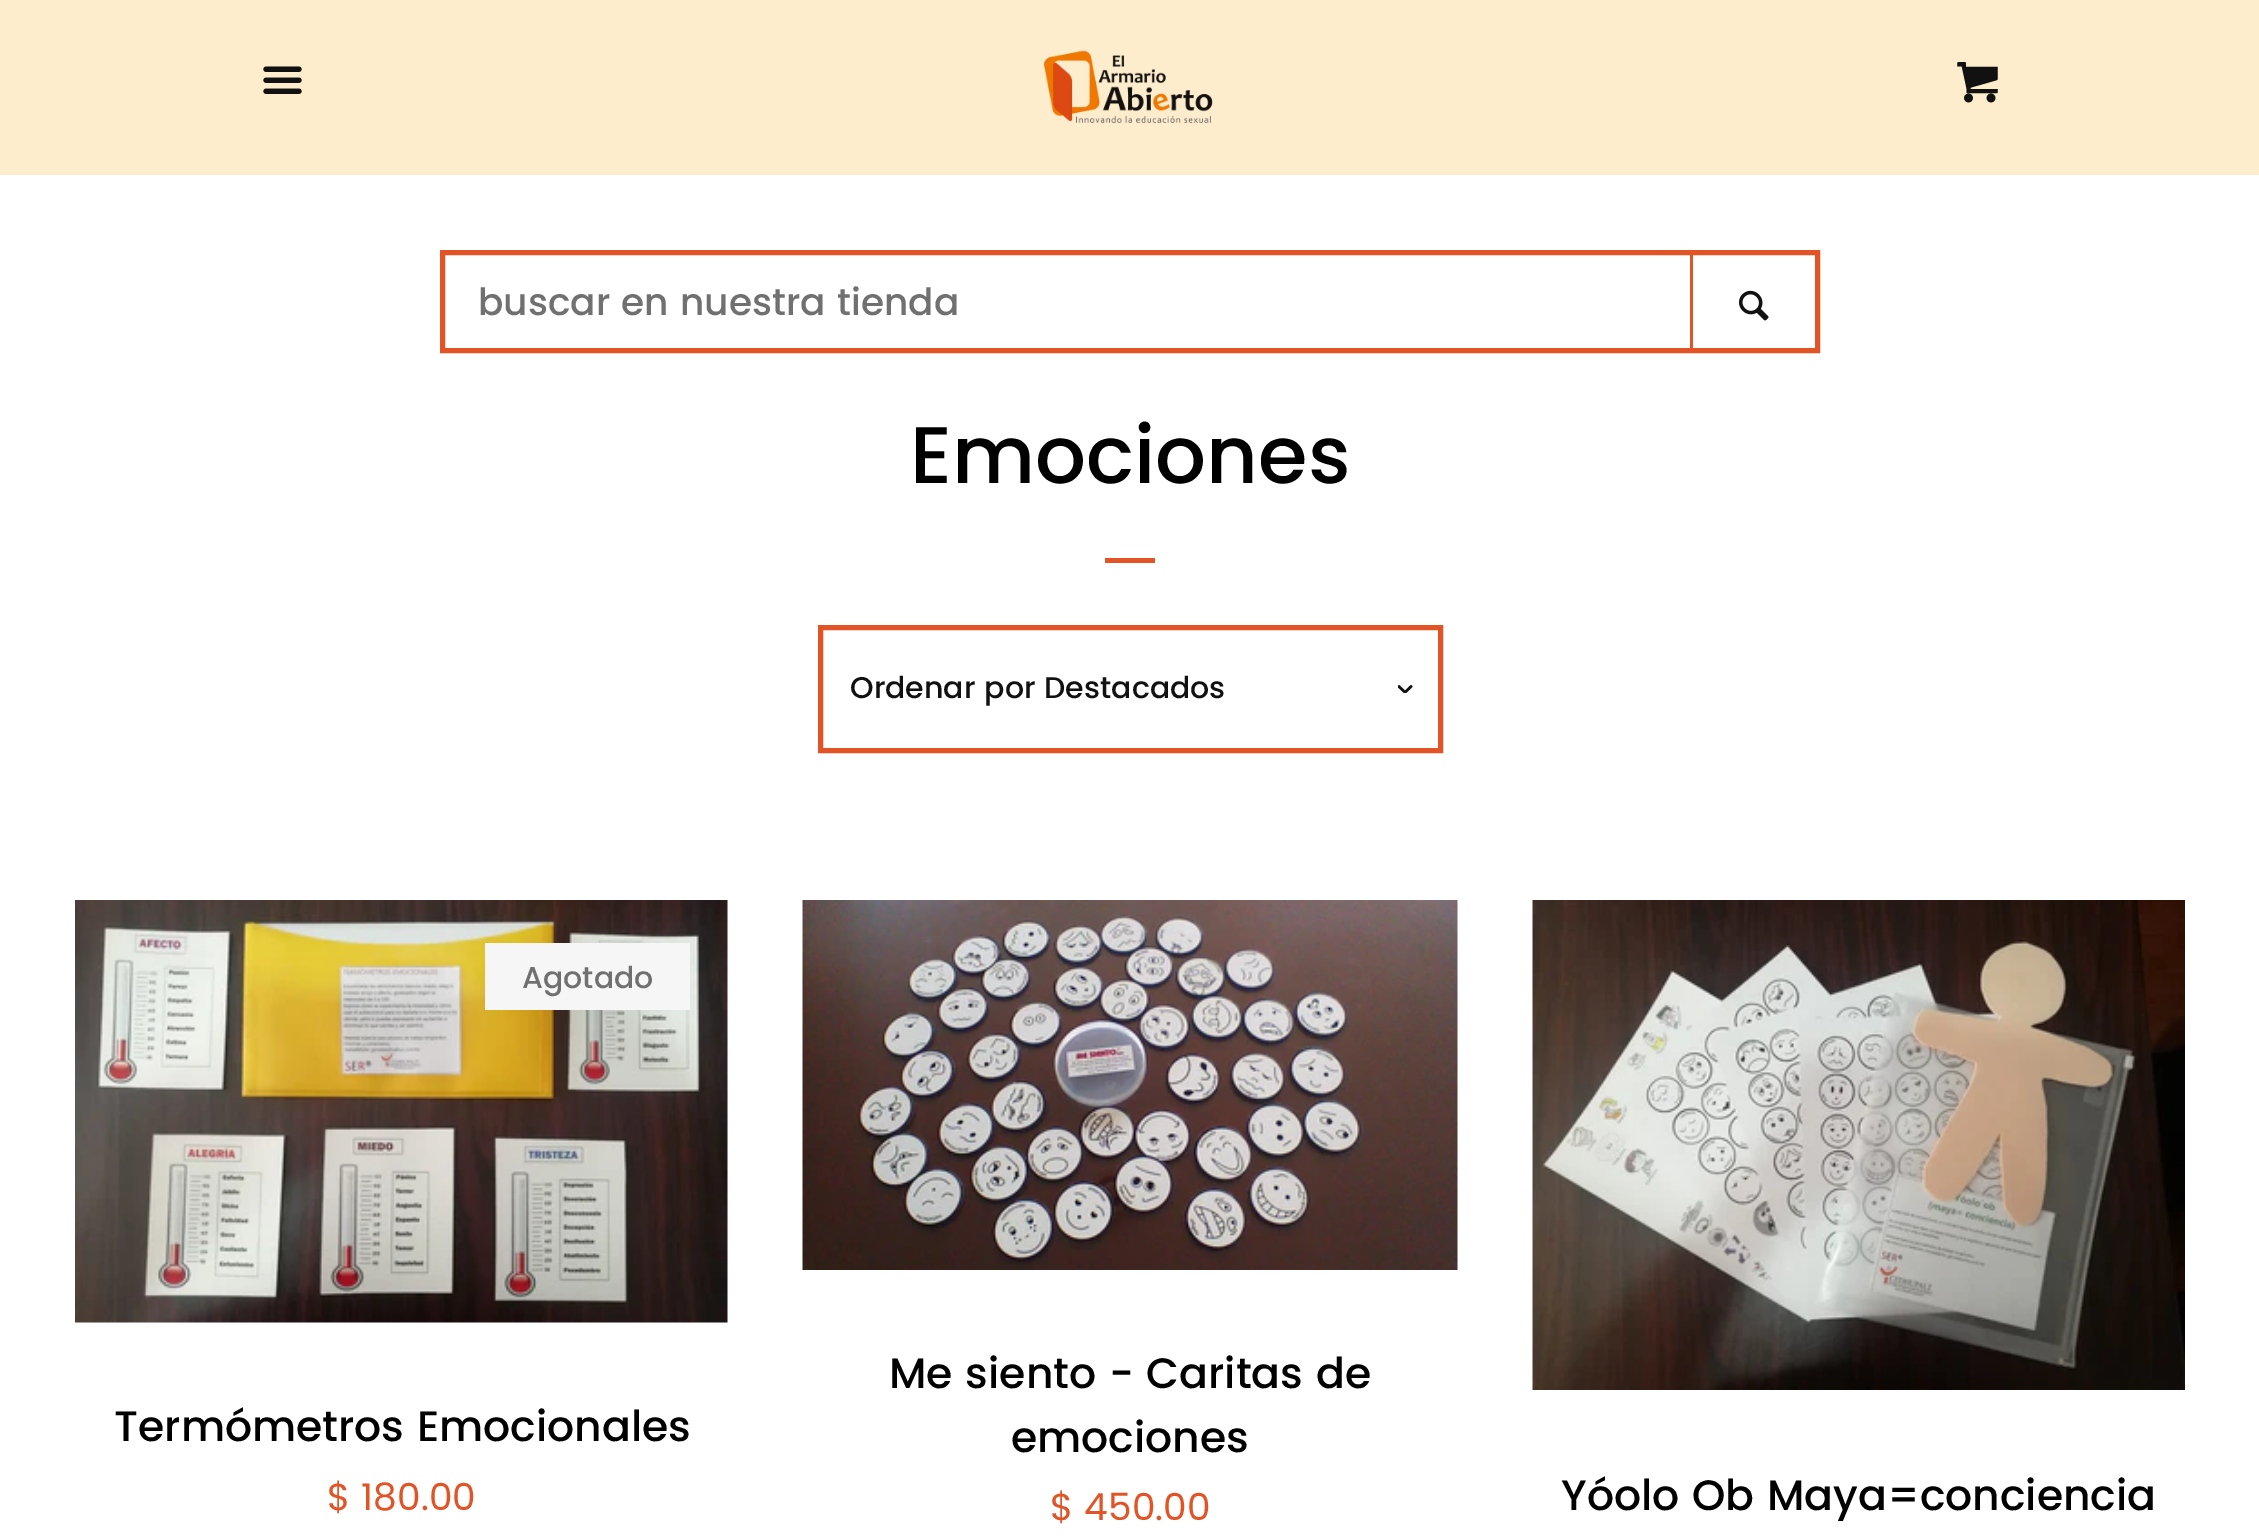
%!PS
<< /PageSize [2259 1536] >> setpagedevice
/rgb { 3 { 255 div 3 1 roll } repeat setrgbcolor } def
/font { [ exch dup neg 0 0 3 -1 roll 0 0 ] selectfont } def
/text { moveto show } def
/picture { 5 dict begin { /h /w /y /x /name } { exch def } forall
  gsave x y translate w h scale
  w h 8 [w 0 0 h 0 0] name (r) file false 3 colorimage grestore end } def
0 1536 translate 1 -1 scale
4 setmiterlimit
253 237 205 rgb
0 0 2259 1536 rectfill
(img_01.rgb) 263 66 39 28 picture
(img_02.rgb) 1044 50 169 73 picture
(img_03.rgb) 1957 62 41 41 picture
255 255 255 rgb
0 175 2259 1361 rectfill
226 84 37 rgb
5 setlinewidth
442.5 252.5 1375 98 rectstroke
1690 255 3 93 rectfill
(img_04.rgb) 1738 290 31 31 picture
1105 558 50 5 rectfill
(img_05.rgb) 1398 685 15 8 picture
820.5 627.5 620 123 rectstroke
(img_06.rgb) 75 900 653 423 picture
246 246 246 rgb
485 943 205 67 rectfill
(img_07.rgb) 802 900 656 370 picture
(img_08.rgb) 1532 900 653 490 picture
/Poppins-Medium 37.5 font
112 112 112 rgb
(buscar en nuestra tienda) 478 315 text
/Poppins-Medium 80 font
0 0 0 rgb
(Emociones) 910 483 text
/Poppins-Medium 30 font
17 17 17 rgb
(Ordenar por Destacados) 850 698 text
112 112 112 rgb
(Agotado) 522 988 text
/Poppins-Medium 42.5 font
0 0 0 rgb
(Termómetros Emocionales) 114 1441 text
/Poppins-Regular 37.5 font
226 84 37 rgb
($ 180.00) 327 1510 text
/Poppins-Medium 42.5 font
0 0 0 rgb
(Me siento - Caritas de) 889 1388 text
(emociones) 1011 1452 text
/Poppins-Regular 37.5 font
226 84 37 rgb
($ 450.00) 1050 1520 text
/Poppins-Medium 42.5 font
0 0 0 rgb
(Yóolo Ob Maya=conciencia) 1561 1510 text
showpage
